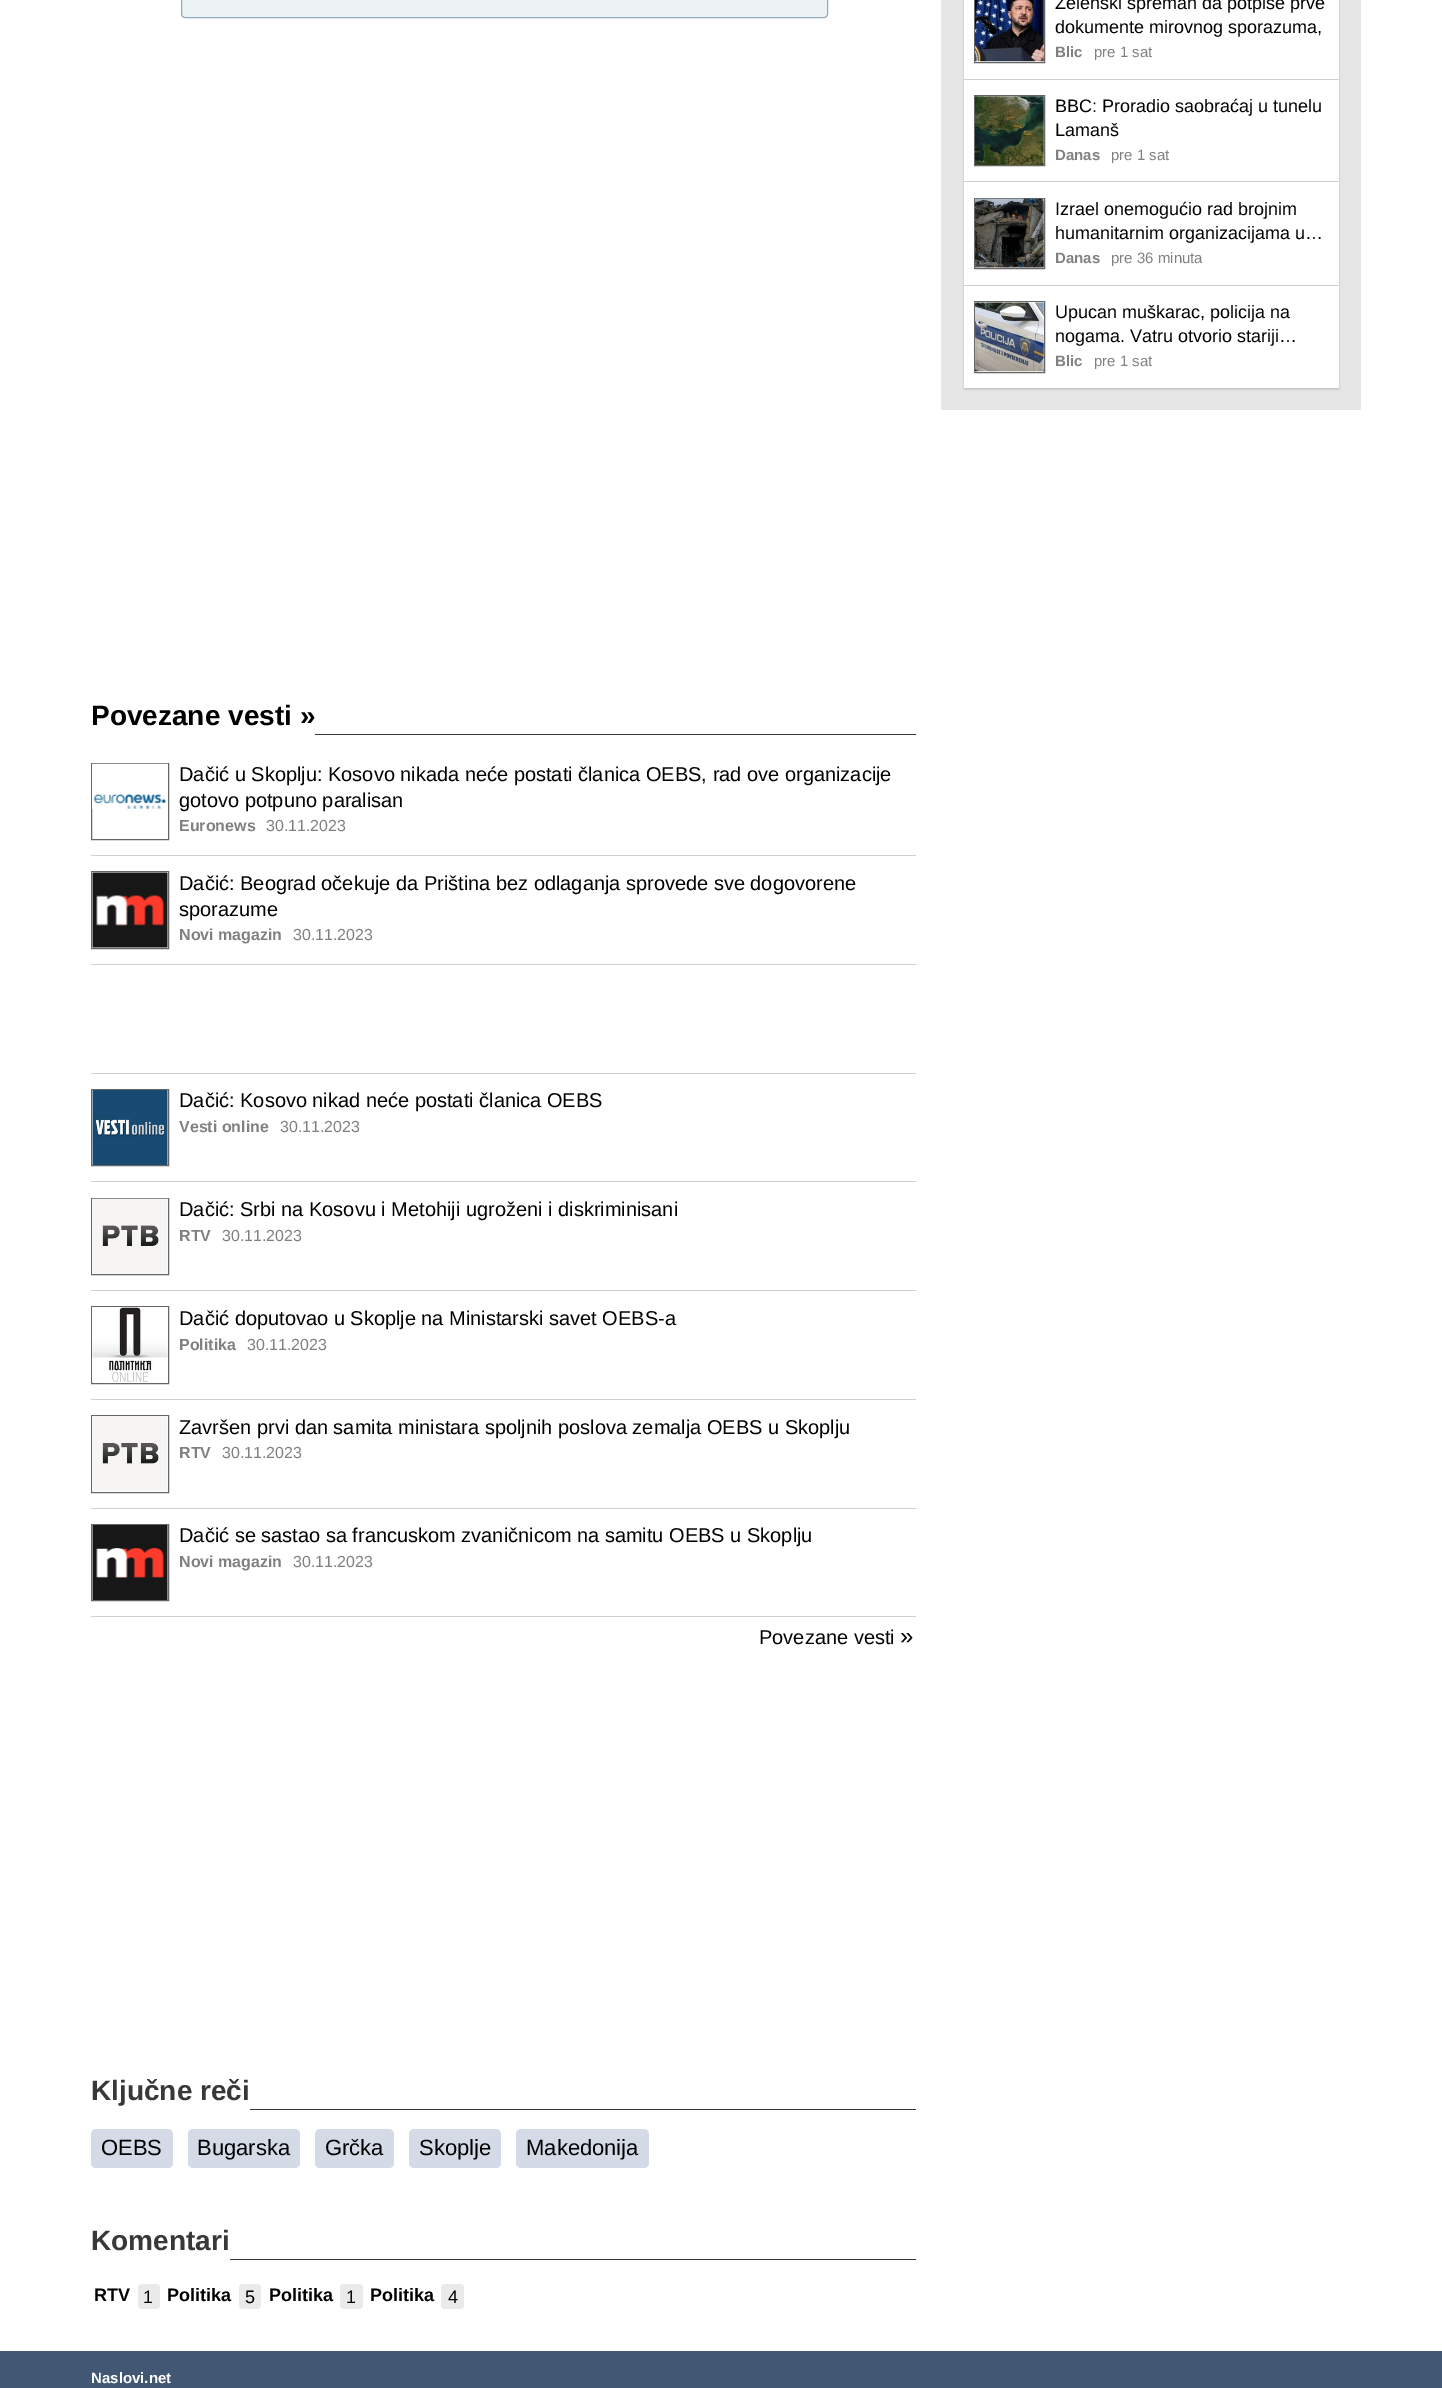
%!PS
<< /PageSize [1442 2388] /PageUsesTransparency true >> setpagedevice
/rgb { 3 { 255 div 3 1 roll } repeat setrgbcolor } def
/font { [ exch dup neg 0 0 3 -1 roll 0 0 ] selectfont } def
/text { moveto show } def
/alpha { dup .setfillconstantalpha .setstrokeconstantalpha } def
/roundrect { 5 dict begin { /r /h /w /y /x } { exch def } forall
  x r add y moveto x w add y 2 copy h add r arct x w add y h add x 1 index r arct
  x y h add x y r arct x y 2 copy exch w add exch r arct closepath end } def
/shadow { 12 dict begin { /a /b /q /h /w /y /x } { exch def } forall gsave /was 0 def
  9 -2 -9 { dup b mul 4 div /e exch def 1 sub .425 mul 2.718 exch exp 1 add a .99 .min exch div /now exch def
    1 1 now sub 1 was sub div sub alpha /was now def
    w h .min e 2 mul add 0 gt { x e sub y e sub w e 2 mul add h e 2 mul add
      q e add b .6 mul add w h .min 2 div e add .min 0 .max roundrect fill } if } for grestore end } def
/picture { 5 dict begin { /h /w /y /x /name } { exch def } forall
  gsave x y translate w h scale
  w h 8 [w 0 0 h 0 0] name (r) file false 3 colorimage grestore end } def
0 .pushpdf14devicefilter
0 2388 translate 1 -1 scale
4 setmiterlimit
255 255 255 rgb
0 0 1442 2388 rectfill
230 230 230 rgb
941 0 420 410 rectfill
0 0 0 rgb
964 -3 375 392 0 1 0.2 shadow
255 255 255 rgb
964 0 375 388 rectfill
102 102 102 rgb
974.5 -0.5 70 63 rectstroke
(img_01.rgb) 975 0 69 62 picture
208 208 208 rgb
964 79 375 1 rectfill
102 102 102 rgb
974.5 95.5 70 70 rectstroke
(img_02.rgb) 975 96 69 69 picture
208 208 208 rgb
964 181 375 1 rectfill
102 102 102 rgb
974.5 198.5 70 70 rectstroke
(img_03.rgb) 975 198 69 70 picture
208 208 208 rgb
964 285 375 1 rectfill
102 102 102 rgb
974.5 301.5 70 71 rectstroke
(img_04.rgb) 975 302 69 70 picture
237 242 245 rgb
181.5 -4.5 646 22 3.5 roundrect gsave fill grestore
147 171 188 rgb
stroke
56 56 56 rgb
315 734 601 1 rectfill
102 102 102 rgb
91.5 763.5 77 76 rectstroke
(img_05.rgb) 92 763 76 46 picture
208 208 208 rgb
91 855 825 1 rectfill
102 102 102 rgb
91.5 871.5 77 77 rectstroke
(img_06.rgb) 92 872 76 76 picture
208 208 208 rgb
91 964 825 1 rectfill
91 1073 825 1 rectfill
102 102 102 rgb
91.5 1089.5 77 76 rectstroke
(img_07.rgb) 92 1090 76 75 picture
208 208 208 rgb
91 1181 825 1 rectfill
102 102 102 rgb
91.5 1198.5 77 76 rectstroke
(img_08.rgb) 92 1198 76 76 picture
208 208 208 rgb
91 1290 825 1 rectfill
102 102 102 rgb
91.5 1306.5 77 77 rectstroke
(img_09.rgb) 92 1307 76 75 picture
208 208 208 rgb
91 1399 825 1 rectfill
102 102 102 rgb
91.5 1415.5 77 77 rectstroke
(img_10.rgb) 92 1416 76 75 picture
208 208 208 rgb
91 1508 825 1 rectfill
102 102 102 rgb
91.5 1524.5 77 76 rectstroke
(img_11.rgb) 92 1525 76 75 picture
208 208 208 rgb
91 1616 825 1 rectfill
56 56 56 rgb
250 2109 666 1 rectfill
212 219 230 rgb
91 2129 82 39 5 roundrect fill
188 2129 112 39 5 roundrect fill
315 2129 79 39 5 roundrect fill
409 2129 92 39 5 roundrect fill
516 2129 133 39 5 roundrect fill
56 56 56 rgb
230 2259 686 1 rectfill
234 234 234 rgb
138 2284 22 25 4 roundrect fill
239 2284 22 25 4 roundrect fill
340 2284 23 25 4 roundrect fill
441 2284 23 25 4 roundrect fill
66 87 116 rgb
0 2351 1442 37 rectfill
/LiberationSans-Regular 18 font
0 0 0 rgb
(Zelenski spreman da potpiše prve) 1055 9 text
(dokumente mirovnog sporazuma,) 1055 33 text
/LiberationSans-Bold 15 font
128 128 128 rgb
(Blic) 1055 57 text
/LiberationSans-Regular 15 font
(pre 1 sat) 1094 57 text
/LiberationSans-Regular 18 font
0 0 0 rgb
(BBC: Proradio saobraćaj u tunelu) 1055 112 text
(Lamanš) 1055 136 text
/LiberationSans-Bold 15 font
128 128 128 rgb
(Danas) 1055 160 text
/LiberationSans-Regular 15 font
(pre 1 sat) 1111 160 text
/LiberationSans-Regular 18 font
0 0 0 rgb
(Izrael onemogućio rad brojnim) 1055 215 text
(humanitarnim organizacijama u…) 1055 239 text
/LiberationSans-Bold 15 font
128 128 128 rgb
(Danas) 1055 263 text
/LiberationSans-Regular 15 font
(pre 36 minuta) 1111 263 text
/LiberationSans-Regular 18 font
0 0 0 rgb
(Upucan muškarac, policija na) 1055 318 text
(nogama. Vatru otvorio stariji…) 1055 342 text
/LiberationSans-Bold 15 font
128 128 128 rgb
(Blic) 1055 366 text
/LiberationSans-Regular 15 font
(pre 1 sat) 1094 366 text
/LiberationSans-Bold 28 font
0 0 0 rgb
(Povezane vesti ») 91 725 text
/LiberationSans-Regular 20 font
(Dačić u Skoplju: Kosovo nikada neće postati članica OEBS, rad ove organizacije) 179 781 text
(gotovo potpuno paralisan) 179 807 text
/LiberationSans-Bold 16 font
128 128 128 rgb
(Euronews) 179 831 text
/LiberationSans-Regular 16 font
(30.11.2023) 266 831 text
/LiberationSans-Regular 20 font
0 0 0 rgb
(Dačić: Beograd očekuje da Priština bez odlaganja sprovede sve dogovorene) 179 890 text
(sporazume) 179 916 text
/LiberationSans-Bold 16 font
128 128 128 rgb
(Novi magazin) 179 940 text
/LiberationSans-Regular 16 font
(30.11.2023) 293 940 text
/LiberationSans-Regular 20 font
0 0 0 rgb
(Dačić: Kosovo nikad neće postati članica OEBS) 179 1107 text
/LiberationSans-Bold 16 font
128 128 128 rgb
(Vesti online) 179 1132 text
/LiberationSans-Regular 16 font
(30.11.2023) 280 1132 text
/LiberationSans-Regular 20 font
0 0 0 rgb
(Dačić: Srbi na Kosovu i Metohiji ugroženi i diskriminisani) 179 1216 text
/LiberationSans-Bold 16 font
128 128 128 rgb
(RTV) 179 1241 text
/LiberationSans-Regular 16 font
(30.11.2023) 222 1241 text
/LiberationSans-Regular 20 font
0 0 0 rgb
(Dačić doputovao u Skoplje na Ministarski savet OEBS-a) 179 1325 text
/LiberationSans-Bold 16 font
128 128 128 rgb
(Politika) 179 1350 text
/LiberationSans-Regular 16 font
(30.11.2023) 247 1350 text
/LiberationSans-Regular 20 font
0 0 0 rgb
(Završen prvi dan samita ministara spoljnih poslova zemalja OEBS u Skoplju) 179 1434 text
/LiberationSans-Bold 16 font
128 128 128 rgb
(RTV) 179 1458 text
/LiberationSans-Regular 16 font
(30.11.2023) 222 1458 text
/LiberationSans-Regular 20 font
0 0 0 rgb
(Dačić se sastao sa francuskom zvaničnicom na samitu OEBS u Skoplju) 179 1542 text
/LiberationSans-Bold 16 font
128 128 128 rgb
(Novi magazin) 179 1567 text
/LiberationSans-Regular 16 font
(30.11.2023) 293 1567 text
/LiberationSans-Regular 20 font
0 0 0 rgb
(Povezane vesti) 759 1644 text
/LiberationSans-Regular 24 font
(») 900 1644 text
/LiberationSans-Bold 28 font
56 56 56 rgb
(Ključne reči) 91 2100 text
/LiberationSans-Regular 22 font
0 0 0 rgb
(OEBS) 101 2155 text
(Bugarska) 197 2155 text
(Grčka) 325 2155 text
(Skoplje) 419 2155 text
(Makedonija) 526 2155 text
/LiberationSans-Bold 28 font
56 56 56 rgb
(Komentari) 91 2250 text
/LiberationSans-Bold 18 font
0 0 0 rgb
(RTV) 94 2301 text
/LiberationSans-Regular 18 font
(1) 143 2303 text
/LiberationSans-Bold 18 font
(Politika) 167 2301 text
/LiberationSans-Regular 18 font
(5) 245 2303 text
/LiberationSans-Bold 18 font
(Politika) 269 2301 text
/LiberationSans-Regular 18 font
(1) 346 2303 text
/LiberationSans-Bold 18 font
(Politika) 370 2301 text
/LiberationSans-Regular 18 font
(4) 448 2303 text
/LiberationSans-Bold 15 font
255 255 255 rgb
(Naslovi.net) 91 2383 text
.poppdf14devicefilter showpage
